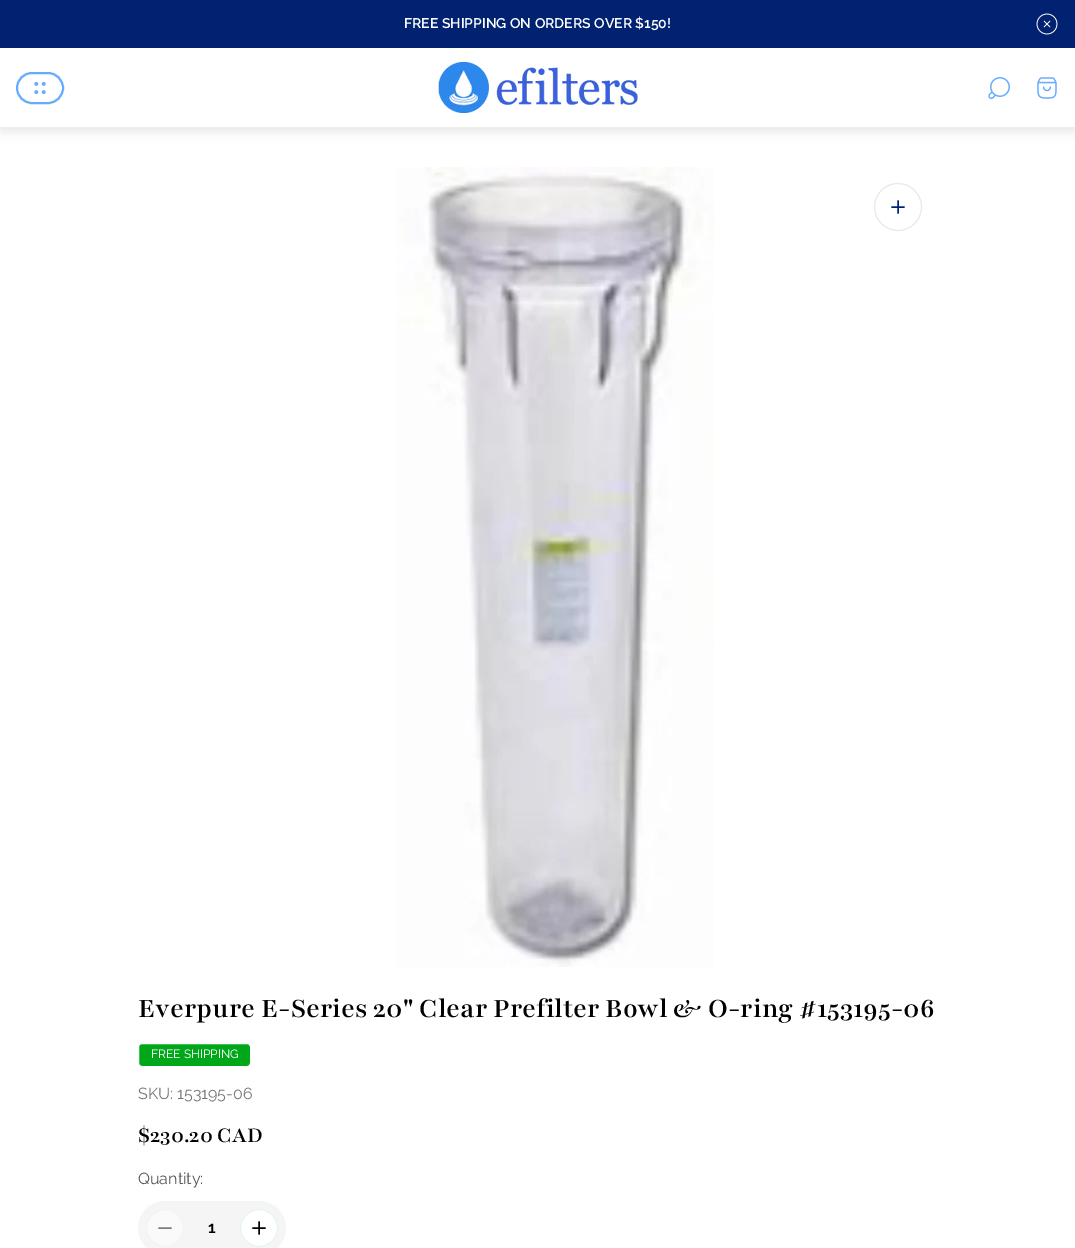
%!PS
<< /PageSize [1075 1248] /PageUsesTransparency true >> setpagedevice
/rgb { 3 { 255 div 3 1 roll } repeat setrgbcolor } def
/font { [ exch dup neg 0 0 3 -1 roll 0 0 ] selectfont } def
/text { moveto show } def
/alpha { dup .setfillconstantalpha .setstrokeconstantalpha } def
/circle { newpath 0 360 arc closepath } def
/roundrect { 5 dict begin { /r /h /w /y /x } { exch def } forall
  x r add y moveto x w add y 2 copy h add r arct x w add y h add x 1 index r arct
  x y h add x y r arct x y 2 copy exch w add exch r arct closepath end } def
/shadow { 12 dict begin { /a /b /q /h /w /y /x } { exch def } forall gsave /was 0 def
  9 -2 -9 { dup b mul 4 div /e exch def 1 sub .425 mul 2.718 exch exp 1 add a .99 .min exch div /now exch def
    1 1 now sub 1 was sub div sub alpha /was now def
    w h .min e 2 mul add 0 gt { x e sub y e sub w e 2 mul add h e 2 mul add
      q e add b .6 mul add w h .min 2 div e add .min 0 .max roundrect fill } if } for grestore end } def
/picture { 5 dict begin { /h /w /y /x /name } { exch def } forall
  gsave x y translate w h scale
  w h 8 [w 0 0 h 0 0] name (r) file false 3 colorimage grestore end } def
0 .pushpdf14devicefilter
0 1248 translate 1 -1 scale
4 setmiterlimit
255 255 255 rgb
0 0 1075 1248 rectfill
0 34 113 rgb
0 0 1075 48 rectfill
(img_01.rgb) 1036 13 22 22 picture
gsave
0 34 moveto 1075 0 rlineto 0 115 rlineto -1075 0 rlineto closepath 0 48 moveto 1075 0 rlineto 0 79 rlineto -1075 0 rlineto closepath eoclip newpath
0 0 0 rgb
0 52 1075 79 0 5.5 0.1 shadow
grestore
101 172 254 rgb
2 setlinewidth
17 73 46 30 15 roundrect stroke
(img_02.rgb) 34 81 12 14 picture
(img_03.rgb) 438 62 200 51 picture
(img_04.rgb) 988 77 22 23 picture
(img_05.rgb) 1037 77 20 22 picture
(img_06.rgb) 396 167 318 800 picture
233 233 233 rgb
1 setlinewidth
898 207 23.5 circle stroke
0 34 113 rgb
1.5 setlinewidth
1 setlinecap
1 setlinejoin
892 207 moveto 12 0 rlineto 898 213 moveto 0 -12 rlineto stroke
0 167 25 rgb
138.5 1043.5 112 23 3.5 roundrect gsave fill grestore
255 255 255 rgb
1 setlinewidth
0 setlinecap
0 setlinejoin
stroke
245 245 245 rgb
138 1201 148 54 27 roundrect fill
250 250 250 rgb
165 1228 18.5 circle gsave fill grestore
238 245 243 rgb
stroke
123 123 123 rgb
1.5 setlinewidth
1 setlinecap
1 setlinejoin
159 1228 moveto 12 0 rlineto stroke
255 255 255 rgb
259 1228 18.5 circle gsave fill grestore
230 244 241 rgb
1 setlinewidth
0 setlinecap
0 setlinejoin
stroke
0 0 0 rgb
1.5 setlinewidth
1 setlinecap
1 setlinejoin
253 1228 moveto 12 0 rlineto 259 1234 moveto 0 -12 rlineto stroke
/Raleway-SemiBold 14 font
255 255 255 rgb
(FREE SHIPPING ON ORDERS OVER $150!) 404 28 text
/Playfair-SemiBold 29.75 font
0 0 0 rgb
(Everpure E-Series 20" Clear Prefilter Bowl & O-ring #153195-06) 138 1017 text
/Raleway-Regular 12 font
255 255 255 rgb
(FREE SHIPPING) 151 1058 text
/Raleway-Regular 16 font
117 117 117 rgb
(SKU: 153195-06) 138 1099 text
/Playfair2-SemiBold 23.5 font
0 0 0 rgb
($230.20 CAD) 138 1142 text
/Raleway-Regular 16 font
83 83 83 rgb
(Quantity:) 138 1184 text
/Raleway-SemiBold 16 font
0 0 0 rgb
(1) 208 1233 text
.poppdf14devicefilter showpage
